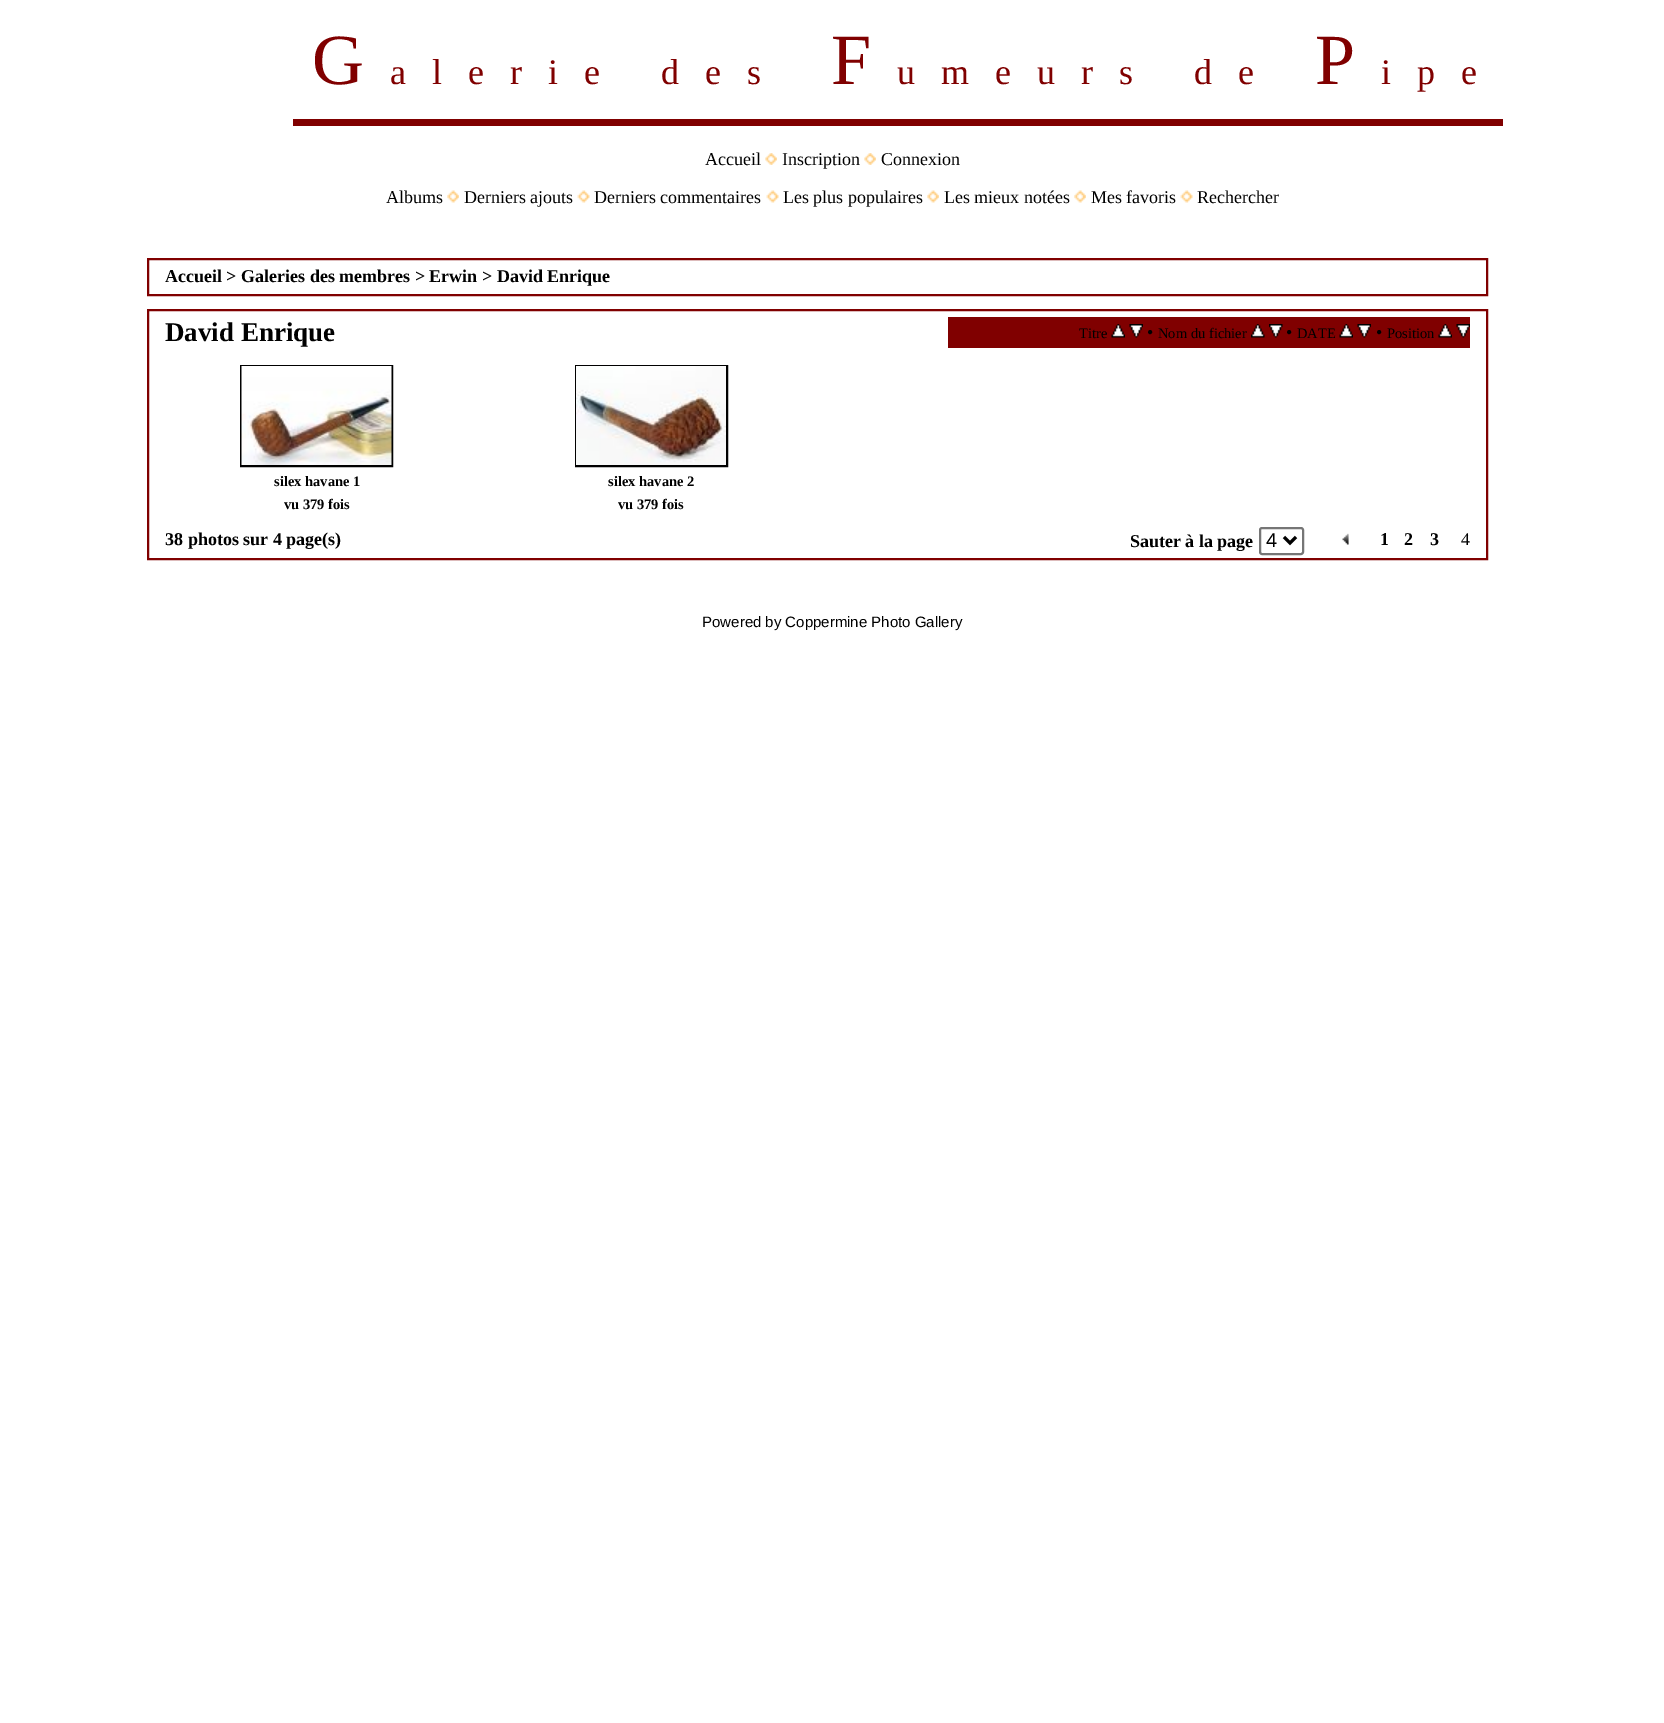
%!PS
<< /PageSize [1664 1723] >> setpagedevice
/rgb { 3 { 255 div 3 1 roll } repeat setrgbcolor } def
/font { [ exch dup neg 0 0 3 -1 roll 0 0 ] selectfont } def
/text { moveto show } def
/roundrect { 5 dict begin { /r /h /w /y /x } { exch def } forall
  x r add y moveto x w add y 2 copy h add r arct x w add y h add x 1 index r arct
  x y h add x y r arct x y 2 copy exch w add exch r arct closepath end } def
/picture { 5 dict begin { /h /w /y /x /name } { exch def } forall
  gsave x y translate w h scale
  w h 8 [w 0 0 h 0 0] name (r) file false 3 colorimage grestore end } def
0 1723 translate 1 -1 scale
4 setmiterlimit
255 255 255 rgb
0 0 1664 1723 rectfill
128 0 0 rgb
293 119 1210 7 rectfill
(img_01.rgb) 765 153 12 12 picture
(img_01.rgb) 864 153 12 12 picture
(img_02.rgb) 447 190 12 13 picture
(img_03.rgb) 577 190 13 13 picture
(img_04.rgb) 766 190 13 13 picture
(img_05.rgb) 927 190 12 13 picture
(img_02.rgb) 1074 190 12 13 picture
(img_03.rgb) 1180 190 13 13 picture
2 setlinewidth
148 259 1339 36 rectstroke
148 310 1339 249 rectstroke
948 317 522 31 rectfill
(img_06.rgb) 1111 324 14 14 picture
(img_07.rgb) 1129 324 14 14 picture
(img_08.rgb) 1251 324 14 14 picture
(img_09.rgb) 1269 324 14 14 picture
(img_10.rgb) 1339 324 14 14 picture
(img_07.rgb) 1357 324 14 14 picture
(img_10.rgb) 1438 324 14 14 picture
(img_07.rgb) 1456 324 14 14 picture
0 0 0 rgb
241 366 151 100 rectstroke
(img_11.rgb) 241 366 151 99 picture
576 366 151 100 rectstroke
(img_12.rgb) 576 366 150 99 picture
118 118 118 rgb
1260 528 43 26 2 roundrect stroke
0 0 0 rgb
3 setlinewidth
1284 537 moveto 6 6 rlineto 6 -6 rlineto stroke
(img_13.rgb) 1342 533 7 12 picture
/LiberationSerif-Regular 72 font
128 0 0 rgb
312 84 moveto 26 0 (G) ashow
/LiberationSerif-Regular 36 font
390 84 moveto 26 0 (alerie des) ashow
/LiberationSerif-Regular 72 font
831 84 moveto 26 0 (F) ashow
/LiberationSerif-Regular 36 font
897 84 moveto 26 0 (umeurs de) ashow
/LiberationSerif-Regular 72 font
1315 84 moveto 26 0 (P) ashow
/LiberationSerif-Regular 36 font
1381 84 moveto 26 0 (ipe) ashow
/LiberationSerif-Regular 18 font
0 0 0 rgb
(Accueil) 705 165 text
(Inscription) 782 165 text
(Connexion) 881 165 text
(Albums) 386 203 text
(Derniers ajouts) 464 203 text
(Derniers commentaires) 594 203 text
(Les plus populaires) 783 203 text
(Les mieux notées) 944 203 text
(Mes favoris) 1091 203 text
(Rechercher) 1197 203 text
/LiberationSerif-Bold 18 font
(Accueil > Galeries des membres > Erwin > David Enrique) 165 282 text
/LiberationSerif-Bold 27 font
(David Enrique) 165 341 text
/LiberationSerif-Regular 14.5 font
(Titre) 1079 338 text
/LiberationSerif-Regular 18 font
(•) 1147 338 text
/LiberationSerif-Regular 14.5 font
(Nom du fichier) 1158 338 text
/LiberationSerif-Regular 18 font
(•) 1286 338 text
/LiberationSerif-Regular 14.5 font
(DATE) 1297 338 text
/LiberationSerif-Regular 18 font
(•) 1376 338 text
/LiberationSerif-Regular 14.5 font
(Position) 1387 338 text
/LiberationSerif-Bold 14.5 font
(silex havane 1) 274 486 text
(vu 379 fois) 284 509 text
(silex havane 2) 608 486 text
(vu 379 fois) 618 509 text
/LiberationSerif-Bold 18 font
(38 photos sur 4 page\(s\)) 165 545 text
(Sauter à la page) 1130 547 text
/LiberationSans-Regular 20 font
(4) 1266 547 text
/LiberationSerif-Bold 18 font
(1) 1380 545 text
(2) 1404 545 text
(3) 1430 545 text
/LiberationSerif-Regular 18 font
(4) 1461 545 text
/LiberationSans-Regular 15 font
(Powered by Coppermine Photo Gallery) 702 627 text
showpage
